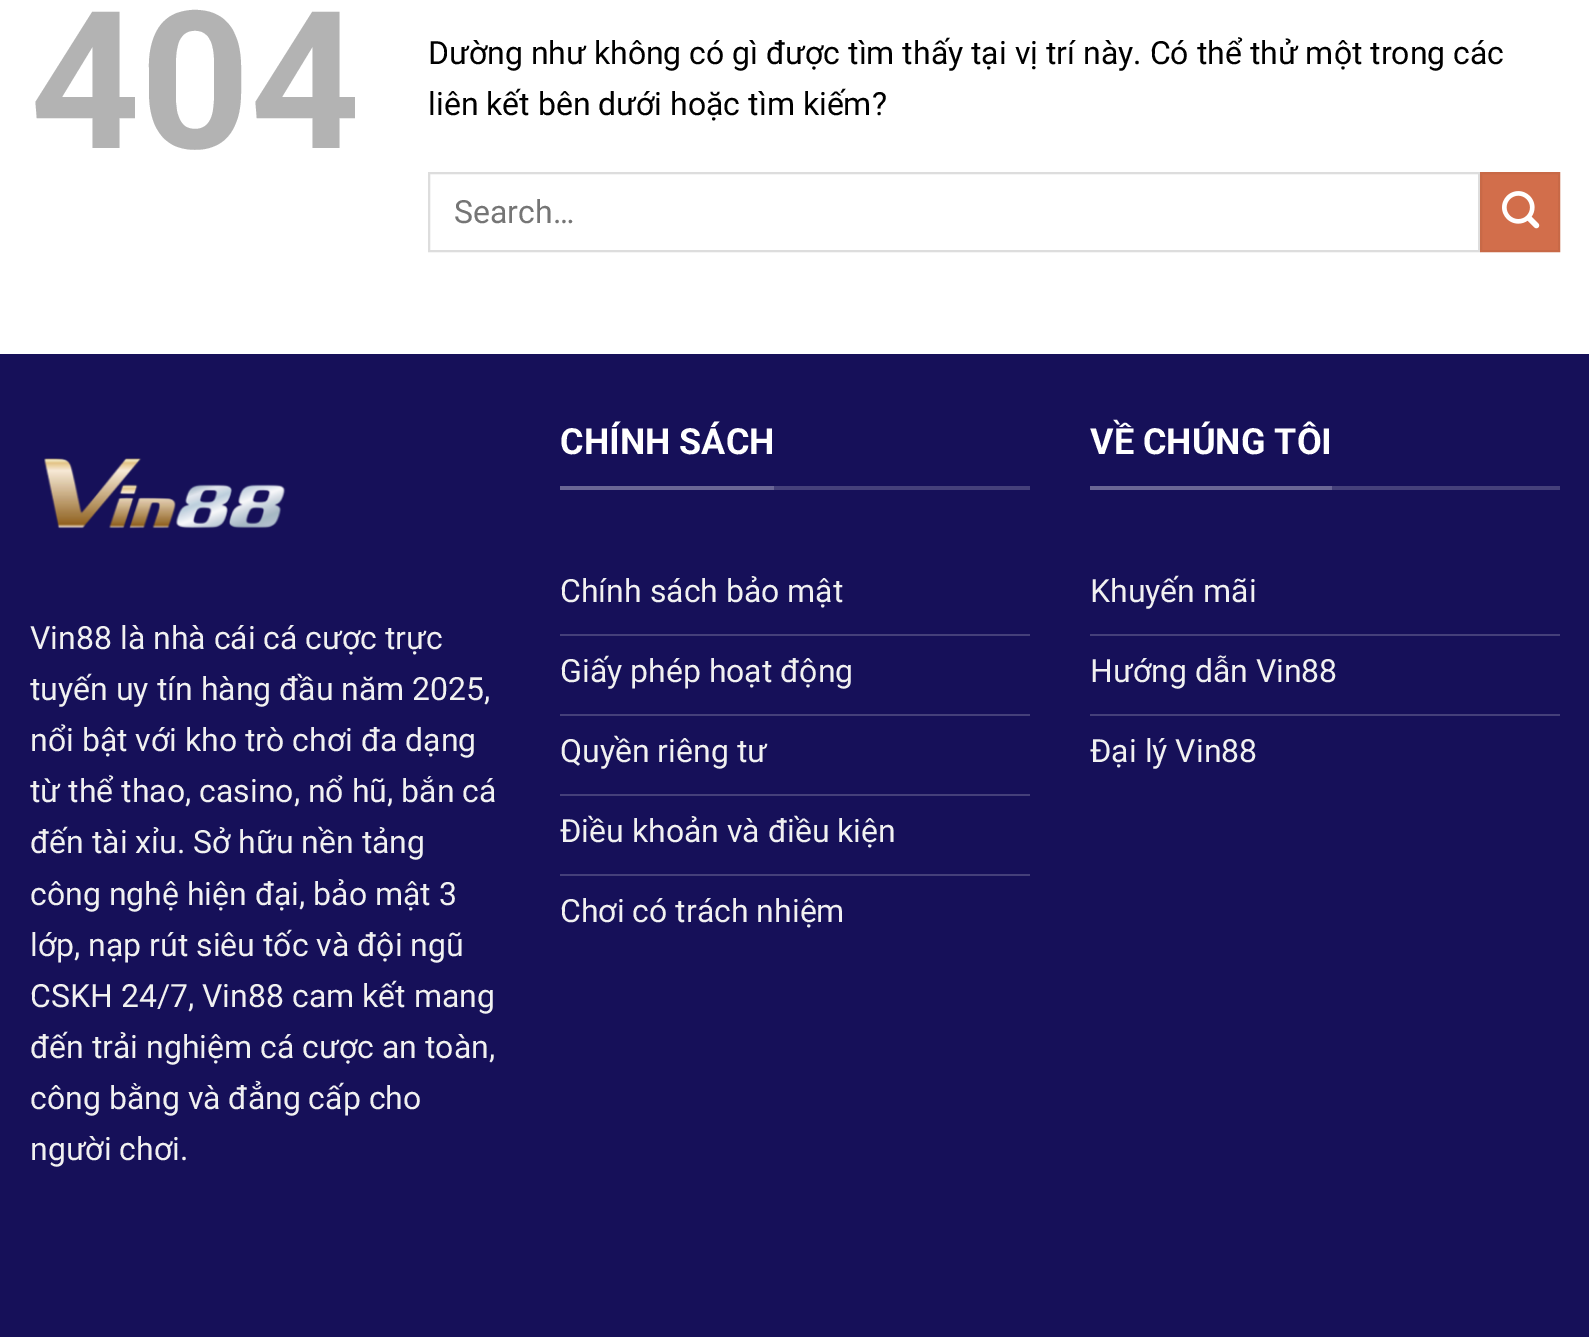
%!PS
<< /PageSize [1589 1337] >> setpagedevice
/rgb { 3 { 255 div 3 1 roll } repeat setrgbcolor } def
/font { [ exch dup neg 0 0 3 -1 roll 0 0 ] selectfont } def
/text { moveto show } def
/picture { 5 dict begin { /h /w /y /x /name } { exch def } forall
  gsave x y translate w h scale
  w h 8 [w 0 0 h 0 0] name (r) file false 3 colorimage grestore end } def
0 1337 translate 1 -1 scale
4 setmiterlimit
255 255 255 rgb
0 0 1589 1337 rectfill
221 221 221 rgb
2 setlinewidth
429 173 1050 78 rectstroke
210 110 75 rgb
1481 173 moveto 78 0 rlineto 0 78 rlineto -78 0 rlineto closepath gsave fill grestore
200 105 71 rgb
stroke
(img_01.rgb) 1502 191 38 38 picture
22 16 89 rgb
0 354 1589 983 rectfill
(img_02.rgb) 44 458 242 71 picture
69 64 122 rgb
774 486 256 4 rectfill
106 102 149 rgb
560 486 214 4 rectfill
69 64 122 rgb
560 634 470 2 rectfill
560 714 470 2 rectfill
560 794 470 2 rectfill
560 874 470 2 rectfill
1332 486 228 4 rectfill
106 102 149 rgb
1090 486 242 4 rectfill
69 64 122 rgb
1090 634 470 2 rectfill
1090 714 470 2 rectfill
/Roboto-Bold 192 font
179 179 179 rgb
(404) 30 148 text
/Roboto-Regular 32 font
0 0 0 rgb
(Dường như không có gì được tìm thấy tại vị trí này. Có thể thử một trong các) 428 64 text
(liên kết bên dưới hoặc tìm kiếm?) 428 115 text
117 117 117 rgb
(Search…) 454 223 text
241 241 241 rgb
(Vin88 là nhà cái cá cược trực) 30 649 text
(tuyến uy tín hàng đầu năm 2025,) 30 700 text
(nổi bật với kho trò chơi đa dạng) 30 751 text
(từ thể thao, casino, nổ hũ, bắn cá) 30 802 text
(đến tài xỉu. Sở hữu nền tảng) 30 853 text
(công nghệ hiện đại, bảo mật 3) 30 905 text
(lớp, nạp rút siêu tốc và đội ngũ) 30 956 text
(CSKH 24/7, Vin88 cam kết mang) 30 1007 text
(đến trải nghiệm cá cược an toàn,) 30 1058 text
(công bằng và đẳng cấp cho) 30 1109 text
(người chơi.) 30 1160 text
/Roboto-Bold 36 font
255 255 255 rgb
(CHÍNH SÁCH) 560 454 text
/Roboto-Regular 32 font
241 241 241 rgb
(Chính sách bảo mật) 560 602 text
(Giấy phép hoạt động) 560 682 text
(Quyền riêng tư) 560 762 text
(Điều khoản và điều kiện) 560 842 text
(Chơi có trách nhiệm) 560 922 text
/Roboto-Bold 36 font
255 255 255 rgb
(VỀ CHÚNG TÔI) 1090 454 text
/Roboto-Regular 32 font
241 241 241 rgb
(Khuyến mãi) 1090 602 text
(Hướng dẫn Vin88) 1090 682 text
(Đại lý Vin88) 1090 762 text
showpage
